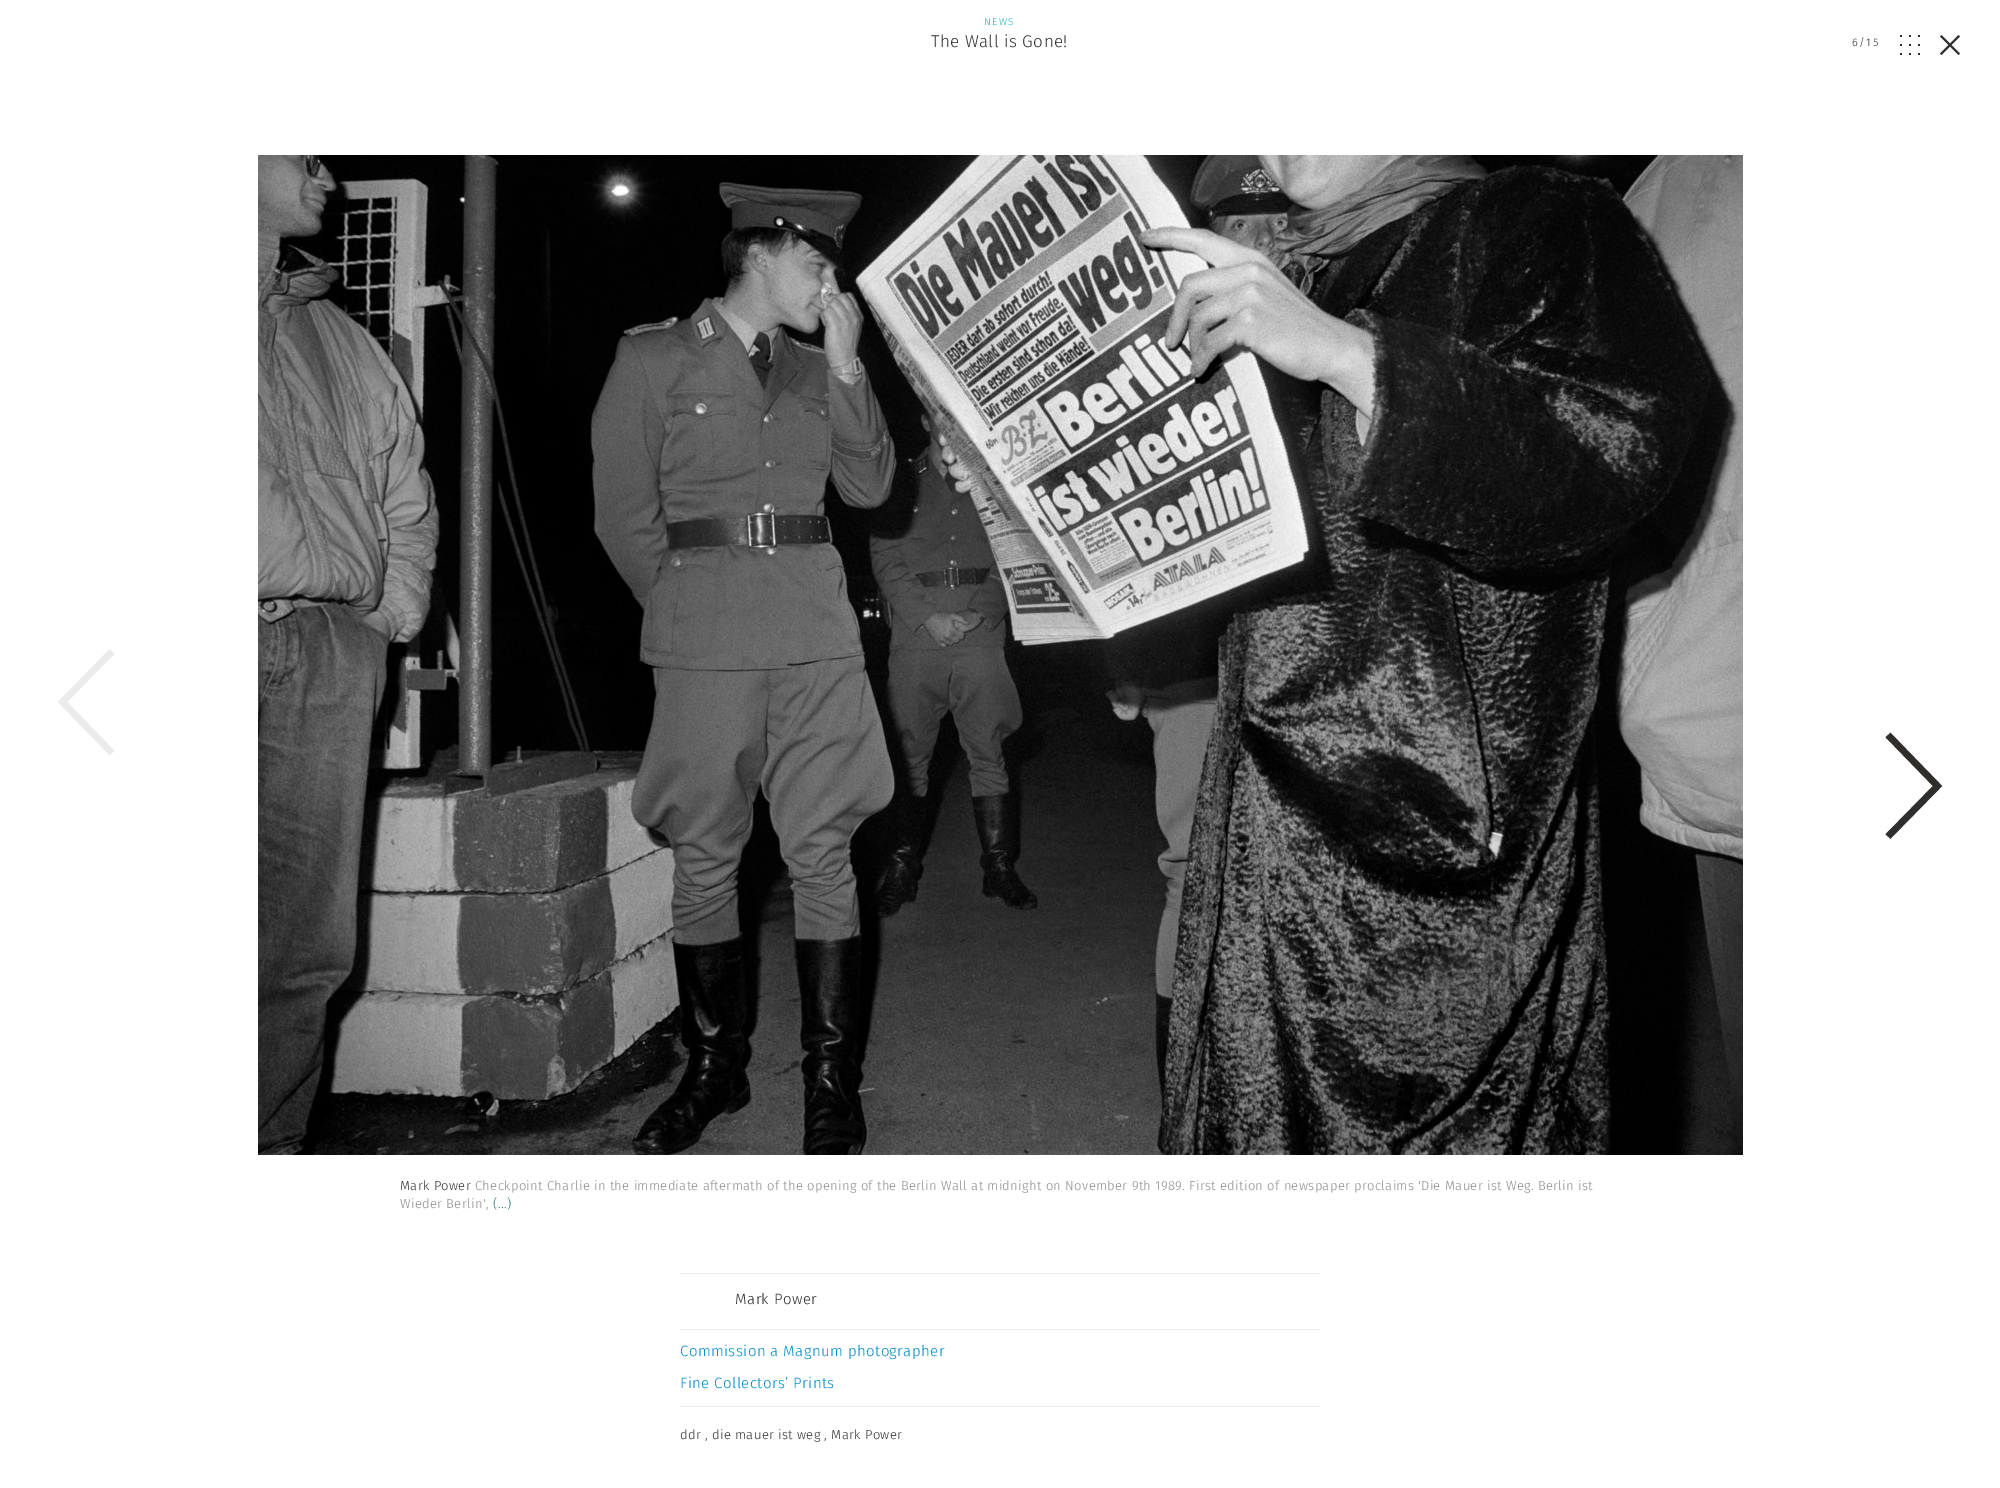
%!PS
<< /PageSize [2000 1488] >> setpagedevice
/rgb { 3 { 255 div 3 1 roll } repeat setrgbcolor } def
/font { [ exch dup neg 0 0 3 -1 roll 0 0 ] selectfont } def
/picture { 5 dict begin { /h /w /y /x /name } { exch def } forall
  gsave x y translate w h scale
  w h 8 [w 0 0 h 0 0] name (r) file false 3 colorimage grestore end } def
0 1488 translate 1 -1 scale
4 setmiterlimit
255 255 255 rgb
0 0 2000 1488 rectfill
(img_01.rgb) 1900 35 20 20 picture
48 45 45 rgb
1941.5 35 moveto 18.5 18.5 rlineto -1.5 1.5 rlineto -18.5 -18.5 rlineto closepath fill
1940 53.5 moveto 18.5 -18.5 rlineto 1.5 1.5 rlineto -18.5 18.5 rlineto closepath fill
235 235 235 rgb
6.7 setlinewidth
112 651.5 moveto -49.5 50.5 rlineto 49.5 51 rlineto stroke
48 45 45 rgb
1888 836.5 moveto 49.5 -50.5 rlineto -49.5 -51 rlineto stroke
(img_02.rgb) 258 155 1485 1000 picture
235 235 235 rgb
680 1273 640 1 rectfill
680 1329 640 1 rectfill
680 1406 640 1 rectfill
/FiraSans-Light 10 font
39 180 178 rgb
984 25 moveto 1.5 0 (NEWS) ashow
/FiraSans-Light 17 font
48 45 45 rgb
931 47 moveto 0.4 0 (The Wall is Gone!) ashow
/FiraSans-Light 11 font
1852 46 moveto 1.5 0 (6/15) ashow
/FiraSans-Light 13 font
400 1190 moveto 0.33 0 (Mark Power) ashow
137 137 137 rgb
475 1190 moveto 0.33 0 (Checkpoint Charlie in the immediate aftermath of the opening of the Berlin Wall at midnight on November 9th 1989. First edition of newspaper proclaims 'Die Mauer ist Weg. Berlin ist) ashow
400 1208 moveto 0.33 0 (Wieder Berlin',) ashow
40 118 117 rgb
493 1208 moveto 0.33 0 (\(...\)) ashow
/FiraSans-Light 15 font
48 45 45 rgb
735 1304 moveto 0.4 0 (Mark Power) ashow
0 140 202 rgb
680 1356 moveto 0.4 0 (Commission a Magnum photographer) ashow
680 1388 moveto 0.4 0 (Fine Collectors’ Prints) ashow
/FiraSans-Light 13 font
48 45 45 rgb
680 1439 moveto 0.33 0 (ddr , die mauer ist weg , Mark Power) ashow
showpage
